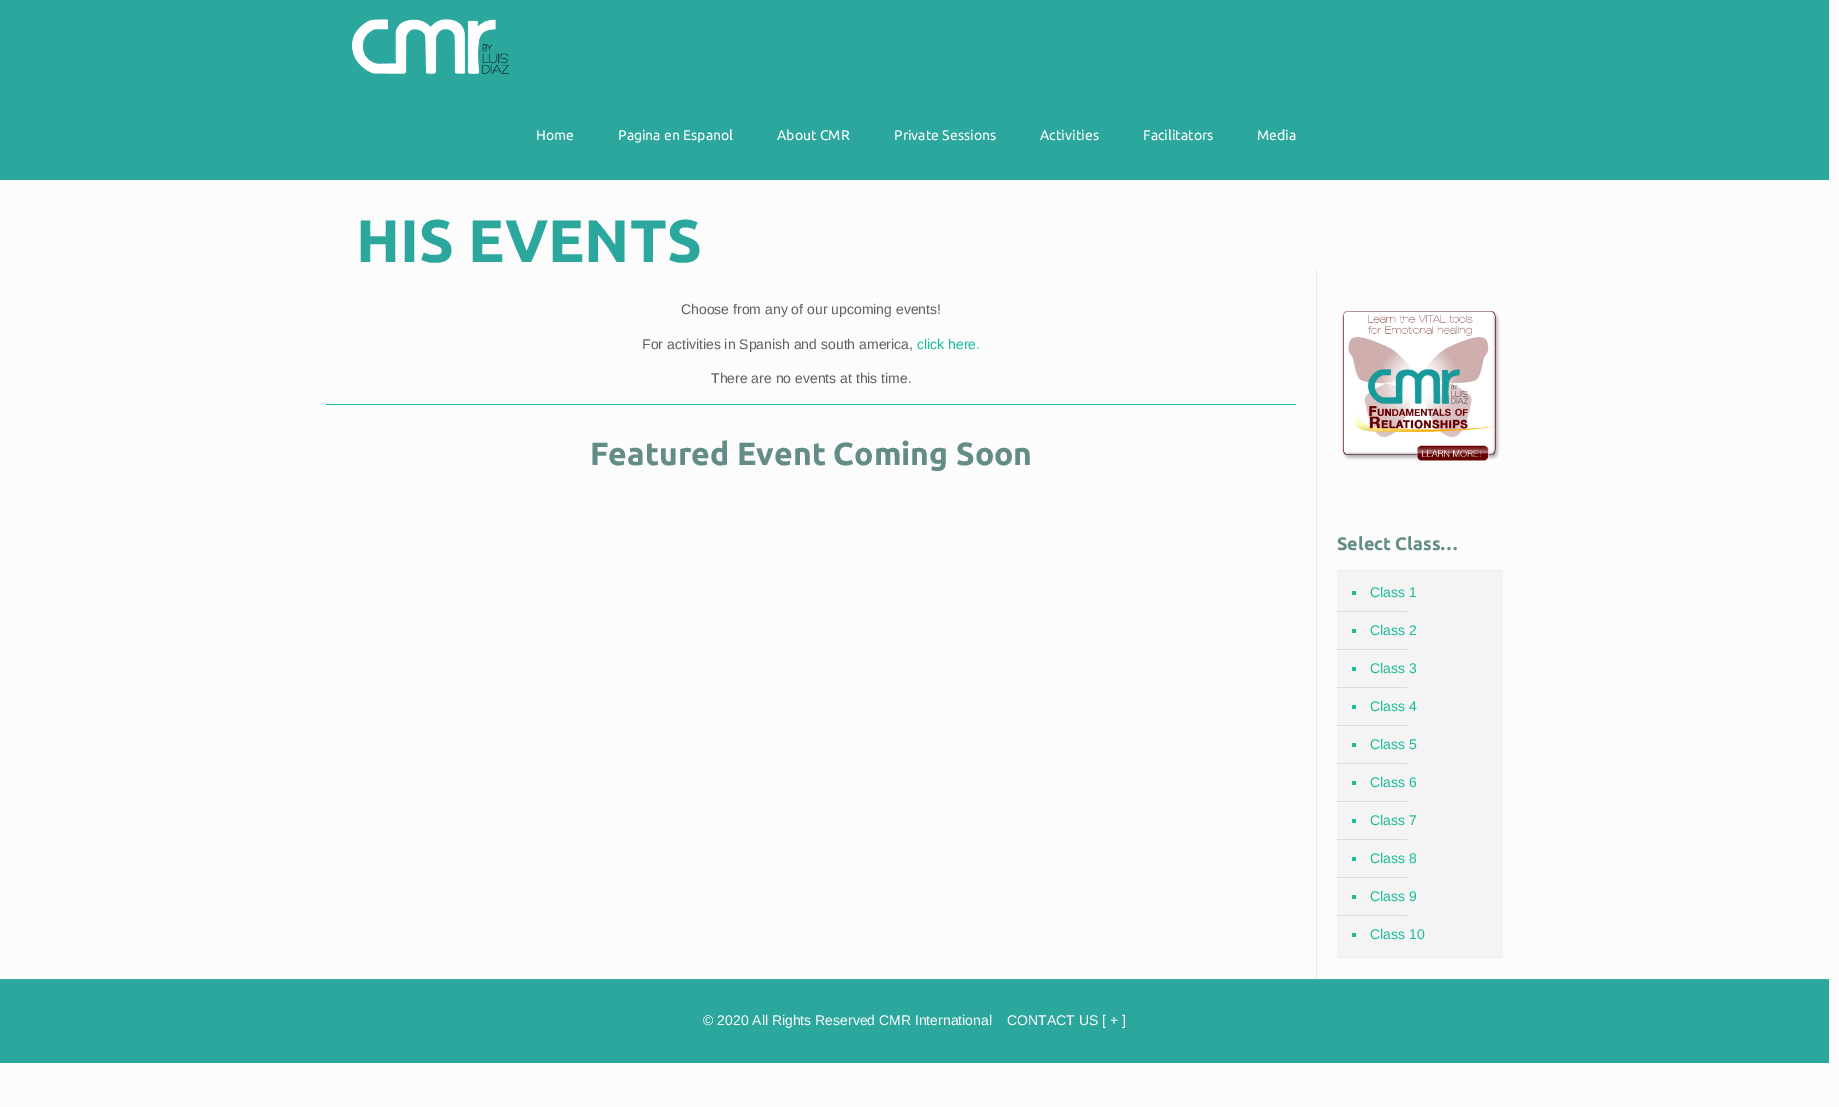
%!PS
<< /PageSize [1839 1107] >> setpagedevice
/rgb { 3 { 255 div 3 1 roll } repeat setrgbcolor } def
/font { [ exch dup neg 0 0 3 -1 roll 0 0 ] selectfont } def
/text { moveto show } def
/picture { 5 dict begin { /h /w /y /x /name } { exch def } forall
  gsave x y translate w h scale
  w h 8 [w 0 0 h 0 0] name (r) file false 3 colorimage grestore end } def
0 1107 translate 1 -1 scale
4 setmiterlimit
252 252 252 rgb
0 0 1839 1107 rectfill
43 167 157 rgb
0 0 1829 180 rectfill
(img_01.rgb) 352 19 157 55 picture
26 188 156 rgb
326 404 970 1 rectfill
232 232 232 rgb
1316 270 1 709 rectfill
(img_02.rgb) 1342 311 158 150 picture
244 244 244 rgb
1337 569 166 390 rectfill
26 188 156 rgb
1352 591 4 4 rectfill
220 220 220 rgb
1337 611 70 1 rectfill
26 188 156 rgb
1352 629 4 4 rectfill
220 220 220 rgb
1337 649 70 1 rectfill
26 188 156 rgb
1352 667 4 4 rectfill
220 220 220 rgb
1337 687 70 1 rectfill
26 188 156 rgb
1352 705 4 4 rectfill
220 220 220 rgb
1337 725 70 1 rectfill
26 188 156 rgb
1352 743 4 4 rectfill
220 220 220 rgb
1337 763 70 1 rectfill
26 188 156 rgb
1352 781 4 4 rectfill
220 220 220 rgb
1337 801 70 1 rectfill
26 188 156 rgb
1352 819 4 4 rectfill
220 220 220 rgb
1337 839 70 1 rectfill
26 188 156 rgb
1352 857 4 4 rectfill
220 220 220 rgb
1337 877 70 1 rectfill
26 188 156 rgb
1352 895 4 4 rectfill
220 220 220 rgb
1337 915 70 1 rectfill
26 188 156 rgb
1352 933 4 4 rectfill
43 167 157 rgb
0 980 1829 83 rectfill
64 176 167 rgb
0 979 1829 1 rectfill
/Ubuntu-Regular 14 font
255 255 255 rgb
(Home) 536 140 text
(Pagina en Espanol) 618 140 text
(About CMR) 777 140 text
(Private Sessions) 894 140 text
(Activities) 1040 140 text
(Facilitators) 1143 140 text
(Media) 1257 140 text
/Ubuntu-Bold 60 font
43 167 157 rgb
(HIS EVENTS) 356 262 text
/LiberationSans-Regular 14 font
97 95 95 rgb
(Choose from any of our upcoming events!) 681 314 text
(For activities in Spanish and south america,) 642 349 text
26 188 156 rgb
(click here.) 917 349 text
97 95 95 rgb
(There are no events at this time.) 711 383 text
/Ubuntu-Bold 32 font
99 140 134 rgb
(Featured Event Coming Soon) 590 465 text
/Ubuntu-Bold 18 font
(Select Class…) 1337 550 text
/LiberationSans-Regular 14 font
26 188 156 rgb
(Class 1) 1370 597 text
(Class 2) 1370 635 text
(Class 3) 1370 673 text
(Class 4) 1370 711 text
(Class 5) 1370 749 text
(Class 6) 1370 787 text
(Class 7) 1370 825 text
(Class 8) 1370 863 text
(Class 9) 1370 901 text
(Class 10) 1370 939 text
255 255 255 rgb
(© 2020 All Rights Reserved CMR International) 703 1025 text
(CONTACT US [ + ]) 1007 1025 text
showpage
